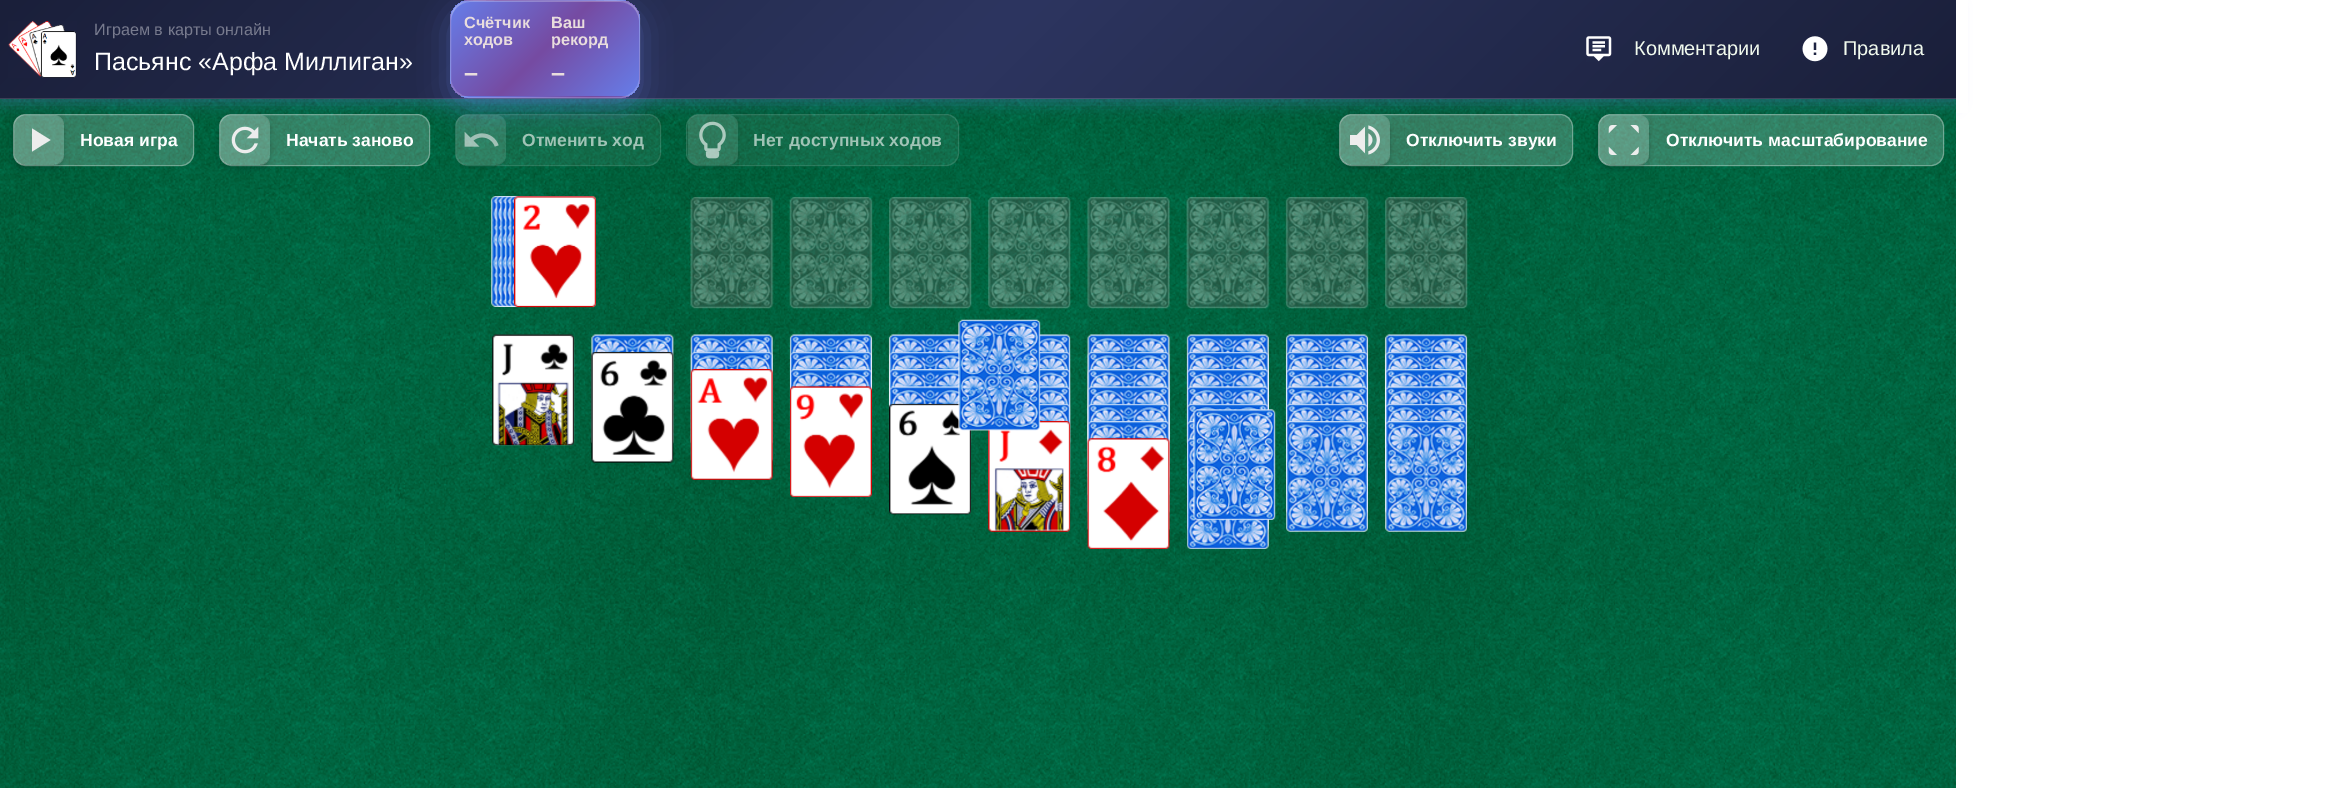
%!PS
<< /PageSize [2332 788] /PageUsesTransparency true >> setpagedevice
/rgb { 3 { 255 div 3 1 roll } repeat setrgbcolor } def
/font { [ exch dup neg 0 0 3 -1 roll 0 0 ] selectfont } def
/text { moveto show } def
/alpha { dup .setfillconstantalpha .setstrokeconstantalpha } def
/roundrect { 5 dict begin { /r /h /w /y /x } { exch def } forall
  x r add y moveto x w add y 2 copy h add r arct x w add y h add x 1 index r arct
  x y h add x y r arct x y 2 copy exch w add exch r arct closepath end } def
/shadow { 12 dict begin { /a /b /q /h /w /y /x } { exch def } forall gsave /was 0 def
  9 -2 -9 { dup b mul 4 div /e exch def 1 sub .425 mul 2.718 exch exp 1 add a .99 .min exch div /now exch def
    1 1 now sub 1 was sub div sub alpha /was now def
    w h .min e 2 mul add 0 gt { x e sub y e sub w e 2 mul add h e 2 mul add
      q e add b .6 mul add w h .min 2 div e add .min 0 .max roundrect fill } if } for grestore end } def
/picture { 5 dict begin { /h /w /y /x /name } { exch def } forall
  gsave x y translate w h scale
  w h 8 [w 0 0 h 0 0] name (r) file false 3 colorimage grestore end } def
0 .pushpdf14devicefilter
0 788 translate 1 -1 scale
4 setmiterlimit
255 255 255 rgb
0 0 2332 788 rectfill
(img_04.rgb) 0 99 1956 689 picture
0.2 alpha
13 114 181 52 13 roundrect fill
0.3 alpha
13.5 114.5 180 51 12.5 roundrect stroke
gsave
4 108 moveto 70 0 rlineto 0 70 rlineto -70 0 rlineto closepath 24 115 moveto 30 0 rlineto 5.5 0 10 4.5 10 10 rcurveto 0 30 rlineto 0 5.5 -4.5 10 -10 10 rcurveto -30 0 rlineto -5.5 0 -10 -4.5 -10 -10 rcurveto 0 -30 rlineto 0 -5.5 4.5 -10 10 -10 rcurveto closepath eoclip newpath
1 alpha
0 0 0 rgb
14 118 50 50 10 3 0.2 shadow
grestore
0.2 alpha
14 115 50 50 10 roundrect fill
219 114 211 52 13 roundrect fill
0.3 alpha
219.5 114.5 210 51 12.5 roundrect stroke
gsave
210 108 moveto 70 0 rlineto 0 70 rlineto -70 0 rlineto closepath 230 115 moveto 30 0 rlineto 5.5 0 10 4.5 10 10 rcurveto 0 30 rlineto 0 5.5 -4.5 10 -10 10 rcurveto -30 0 rlineto -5.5 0 -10 -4.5 -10 -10 rcurveto 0 -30 rlineto 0 -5.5 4.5 -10 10 -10 rcurveto closepath eoclip newpath
1 alpha
0 0 0 rgb
220 118 50 50 10 3 0.2 shadow
grestore
0.2 alpha
220 115 50 50 10 roundrect fill
1 alpha
(img_05.rgb) 231 126 28 28 picture
0.07 alpha
455 114 206 52 13 roundrect fill
0.11 alpha
455.5 114.5 205 51 12.5 roundrect stroke
gsave
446 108 moveto 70 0 rlineto 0 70 rlineto -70 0 rlineto closepath 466 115 moveto 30 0 rlineto 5.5 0 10 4.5 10 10 rcurveto 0 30 rlineto 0 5.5 -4.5 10 -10 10 rcurveto -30 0 rlineto -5.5 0 -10 -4.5 -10 -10 rcurveto 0 -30 rlineto 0 -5.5 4.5 -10 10 -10 rcurveto closepath eoclip newpath
1 alpha
0 0 0 rgb
456 118 50 50 10 3 0.12 shadow
grestore
0.12 alpha
456 115 50 50 10 roundrect fill
0.07 alpha
686 114 273 52 13 roundrect fill
0.11 alpha
686.5 114.5 272 51 12.5 roundrect stroke
gsave
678 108 moveto 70 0 rlineto 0 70 rlineto -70 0 rlineto closepath 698 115 moveto 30 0 rlineto 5.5 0 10 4.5 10 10 rcurveto 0 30 rlineto 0 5.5 -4.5 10 -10 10 rcurveto -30 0 rlineto -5.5 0 -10 -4.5 -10 -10 rcurveto 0 -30 rlineto 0 -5.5 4.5 -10 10 -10 rcurveto closepath eoclip newpath
1 alpha
0 0 0 rgb
688 118 50 50 10 3 0.12 shadow
grestore
0.12 alpha
688 115 50 50 10 roundrect fill
1 alpha
(img_07.rgb) 699 121 27 38 picture
0.2 alpha
1339 114 234 52 13 roundrect fill
0.3 alpha
1339.5 114.5 233 51 12.5 roundrect stroke
gsave
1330 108 moveto 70 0 rlineto 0 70 rlineto -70 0 rlineto closepath 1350 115 moveto 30 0 rlineto 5.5 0 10 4.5 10 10 rcurveto 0 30 rlineto 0 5.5 -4.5 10 -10 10 rcurveto -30 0 rlineto -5.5 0 -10 -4.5 -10 -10 rcurveto 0 -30 rlineto 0 -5.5 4.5 -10 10 -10 rcurveto closepath eoclip newpath
1 alpha
0 0 0 rgb
1340 118 50 50 10 3 0.2 shadow
grestore
0.2 alpha
1340 115 50 50 10 roundrect fill
1 alpha
(img_08.rgb) 1350 125 30 30 picture
0.2 alpha
1598 114 346 52 13 roundrect fill
0.3 alpha
1598.5 114.5 345 51 12.5 roundrect stroke
gsave
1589 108 moveto 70 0 rlineto 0 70 rlineto -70 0 rlineto closepath 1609 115 moveto 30 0 rlineto 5.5 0 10 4.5 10 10 rcurveto 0 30 rlineto 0 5.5 -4.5 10 -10 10 rcurveto -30 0 rlineto -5.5 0 -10 -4.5 -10 -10 rcurveto 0 -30 rlineto 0 -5.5 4.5 -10 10 -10 rcurveto closepath eoclip newpath
1 alpha
0 0 0 rgb
1599 118 50 50 10 3 0.2 shadow
grestore
0.2 alpha
1599 115 50 50 10 roundrect fill
1 alpha
(img_09.rgb) 1608 125 31 30 picture
102 126 234 rgb
0 5 1956 99 0 7.5 0.3 shadow
gsave 0 0 moveto 1956 0 rlineto 0 98 rlineto -1956 0 rlineto closepath clip newpath
<< /ShadingType 2 /ColorSpace /DeviceRGB /Coords [465 -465 1492 562] /Extend [true true] /Function << /FunctionType 3 /Domain [0 1] /Functions [<< /FunctionType 2 /Domain [0 1] /C0 [0.102 0.122 0.227] /C1 [0.176 0.208 0.376] /N 1 >> << /FunctionType 2 /Domain [0 1] /C0 [0.176 0.208 0.376] /C1 [0.102 0.122 0.227] /N 1 >>] /Bounds [0.5] /Encode [0 1 0 1] >> >> shfill grestore
gsave 0 98 moveto 1956 0 rlineto 0 1 rlineto -1956 0 rlineto closepath clip newpath
<< /ShadingType 2 /ColorSpace /DeviceRGB /Coords [465 -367 1492 660] /Extend [true true] /Function << /FunctionType 3 /Domain [0 1] /Functions [<< /FunctionType 2 /Domain [0 1] /C0 [0.102 0.122 0.227] /C1 [0.176 0.208 0.376] /N 1 >> << /FunctionType 2 /Domain [0 1] /C0 [0.176 0.208 0.376] /C1 [0.102 0.122 0.227] /N 1 >>] /Bounds [0.5] /Encode [0 1 0 1] >> >> shfill grestore
0.15 alpha
255 255 255 rgb
0 98 1956 1 rectfill
1 alpha
(img_01.rgb) 8 21 69 57 picture
(img_06.rgb) 464 131 35 16 picture
102 126 234 rgb
450 10 190 98 20 15 0.4 shadow
gsave
450 0 190 98 20 roundrect clip newpath
gsave 464 0 moveto 162 0 rlineto 0 1 rlineto -162 0 rlineto closepath clip newpath
<< /ShadingType 2 /ColorSpace /DeviceRGB /Coords [474 -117 616 24] /Extend [true true] /Function << /FunctionType 3 /Domain [0 1] /Functions [<< /FunctionType 2 /Domain [0 1] /C0 [0.4 0.494 0.918] /C1 [0.463 0.294 0.635] /N 1 >> << /FunctionType 2 /Domain [0 1] /C0 [0.463 0.294 0.635] /C1 [0.4 0.494 0.918] /N 1 >>] /Bounds [0.5] /Encode [0 1 0 1] >> >> shfill grestore
gsave 450 14 moveto 1 0 rlineto 0 70 rlineto -1 0 rlineto closepath clip newpath
<< /ShadingType 2 /ColorSpace /DeviceRGB /Coords [287 -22 428 119] /Extend [true true] /Function << /FunctionType 3 /Domain [0 1] /Functions [<< /FunctionType 2 /Domain [0 1] /C0 [0.4 0.494 0.918] /C1 [0.463 0.294 0.635] /N 1 >> << /FunctionType 2 /Domain [0 1] /C0 [0.463 0.294 0.635] /C1 [0.4 0.494 0.918] /N 1 >>] /Bounds [0.5] /Encode [0 1 0 1] >> >> shfill grestore
gsave 451 1 moveto 188 0 rlineto 0 95 rlineto -188 0 rlineto closepath clip newpath
<< /ShadingType 2 /ColorSpace /DeviceRGB /Coords [474 -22 616 119] /Extend [true true] /Function << /FunctionType 3 /Domain [0 1] /Functions [<< /FunctionType 2 /Domain [0 1] /C0 [0.4 0.494 0.918] /C1 [0.463 0.294 0.635] /N 1 >> << /FunctionType 2 /Domain [0 1] /C0 [0.463 0.294 0.635] /C1 [0.4 0.494 0.918] /N 1 >>] /Bounds [0.5] /Encode [0 1 0 1] >> >> shfill grestore
gsave 639 14 moveto 1 0 rlineto 0 70 rlineto -1 0 rlineto closepath clip newpath
<< /ShadingType 2 /ColorSpace /DeviceRGB /Coords [662 -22 803 119] /Extend [true true] /Function << /FunctionType 3 /Domain [0 1] /Functions [<< /FunctionType 2 /Domain [0 1] /C0 [0.4 0.494 0.918] /C1 [0.463 0.294 0.635] /N 1 >> << /FunctionType 2 /Domain [0 1] /C0 [0.463 0.294 0.635] /C1 [0.4 0.494 0.918] /N 1 >>] /Bounds [0.5] /Encode [0 1 0 1] >> >> shfill grestore
gsave 461 96 moveto 168 0 rlineto 0 2 rlineto -168 0 rlineto closepath clip newpath
<< /ShadingType 2 /ColorSpace /DeviceRGB /Coords [474 73 616 214] /Extend [true true] /Function << /FunctionType 3 /Domain [0 1] /Functions [<< /FunctionType 2 /Domain [0 1] /C0 [0.4 0.494 0.918] /C1 [0.463 0.294 0.635] /N 1 >> << /FunctionType 2 /Domain [0 1] /C0 [0.463 0.294 0.635] /C1 [0.4 0.494 0.918] /N 1 >>] /Bounds [0.5] /Encode [0 1 0 1] >> >> shfill grestore
grestore
0.2 alpha
255 255 255 rgb
470 2 moveto 150 0 rlineto 10 0 19 9 19 19 rcurveto 0 -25 -27 -20 -44 -20 rcurveto -100 0 rlineto -17 0 -44 -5 -44 20 rcurveto 0 -10 9 -19 19 -19 rcurveto closepath fill
450.5 0.5 189 97 19.5 roundrect stroke
1 alpha
(img_02.rgb) 1586 36 26 26 picture
(img_03.rgb) 1802 36 26 26 picture
1956 0 12 113 rectfill
237 237 237 rgb
32 128.5 moveto 0 23 rlineto 18.5 -11.5 rlineto closepath eofill
(img_10.rgb) 491 196 81 111 picture
(img_11.rgb) 495 196 82 111 picture
(img_12.rgb) 500 196 82 111 picture
(img_13.rgb) 504 196 82 111 picture
(img_14.rgb) 509 196 82 111 picture
(img_15.rgb) 514 196 82 111 picture
(img_16.rgb) 1186 334 83 111 picture
(img_17.rgb) 514 196 82 112 picture
(img_24.rgb) 1187 334 82 111 picture
(img_23.rgb) 1187 352 82 111 picture
(img_22.rgb) 1187 369 82 111 picture
(img_21.rgb) 1187 386 82 111 picture
(img_20.rgb) 1187 403 82 111 picture
(img_19.rgb) 1187 421 82 111 picture
(img_18.rgb) 1187 438 82 111 picture
(img_25.rgb) 690 197 84 112 picture
(img_26.rgb) 789 197 84 112 picture
(img_27.rgb) 889 197 83 112 picture
(img_28.rgb) 988 197 83 112 picture
(img_29.rgb) 1087 197 83 112 picture
(img_30.rgb) 1186 197 84 112 picture
(img_31.rgb) 1285 197 84 112 picture
(img_32.rgb) 1385 197 83 112 picture
(img_33.rgb) 492 334 83 112 picture
(img_34.rgb) 492 334 82 112 picture
(img_35.rgb) 591 334 83 109 picture
(img_36.rgb) 591 334 83 110 picture
(img_37.rgb) 591 352 83 111 picture
(img_38.rgb) 690 334 83 110 picture
(img_39.rgb) 690 334 83 110 picture
(img_40.rgb) 690 352 83 110 picture
(img_41.rgb) 690 369 83 111 picture
(img_42.rgb) 789 334 84 109 picture
(img_43.rgb) 790 334 82 57 picture
(img_44.rgb) 790 352 82 39 picture
(img_45.rgb) 790 369 82 22 picture
(img_46.rgb) 790 386 82 111 picture
(img_47.rgb) 888 334 84 109 picture
(img_48.rgb) 889 334 71 74 picture
(img_49.rgb) 889 352 71 56 picture
(img_50.rgb) 889 369 71 39 picture
(img_51.rgb) 889 386 71 22 picture
(img_52.rgb) 889 403 82 112 picture
(img_53.rgb) 1384 334 84 111 picture
(img_61.rgb) 988 334 83 110 picture
(img_62.rgb) 988 334 83 110 picture
(img_63.rgb) 988 352 83 109 picture
(img_64.rgb) 988 369 83 109 picture
(img_65.rgb) 988 386 83 110 picture
(img_66.rgb) 988 403 83 110 picture
(img_67.rgb) 988 421 83 111 picture
(img_54.rgb) 958 319 83 112 picture
(img_60.rgb) 1385 334 82 111 picture
(img_59.rgb) 1385 352 82 111 picture
(img_58.rgb) 1385 369 82 111 picture
(img_57.rgb) 1385 386 82 111 picture
(img_56.rgb) 1385 403 82 112 picture
(img_55.rgb) 1385 421 82 111 picture
(img_68.rgb) 1087 334 84 110 picture
(img_69.rgb) 1087 334 83 110 picture
(img_70.rgb) 1087 352 83 110 picture
(img_71.rgb) 1087 369 83 110 picture
(img_72.rgb) 1087 386 83 110 picture
(img_73.rgb) 1087 403 83 111 picture
(img_74.rgb) 1087 421 83 110 picture
(img_75.rgb) 1087 438 83 111 picture
(img_76.rgb) 1285 334 84 111 picture
(img_77.rgb) 1286 334 82 111 picture
(img_78.rgb) 1286 352 82 111 picture
(img_79.rgb) 1286 369 82 111 picture
(img_80.rgb) 1286 386 82 111 picture
(img_81.rgb) 1286 403 82 111 picture
(img_82.rgb) 1193 409 83 111 picture
(img_83.rgb) 1286 421 82 111 picture
/LiberationSans-Regular 16.25 font
120 123 142 rgb
(Играем в карты онлайн) 94 35 text
/LiberationSans-Regular 25 font
255 255 255 rgb
(Пасьянс «Арфа Миллиган») 94 70 text
/LiberationSans-Bold 16.25 font
233 221 221 rgb
(Счётчик) 464 28 text
(ходов) 464 45 text
/LiberationSans-Bold 25 font
(–) 464 81 text
/LiberationSans-Bold 16.25 font
(Ваш) 551 28 text
(рекорд) 551 45 text
/LiberationSans-Bold 25 font
(–) 551 81 text
/LiberationSans-Regular 20 font
241 250 238 rgb
(Комментарии) 1634 55 text
(Правила) 1843 55 text
/LiberationSans-Bold 17.5 font
255 255 255 rgb
(Новая игра) 80 146 text
(Начать заново) 286 146 text
160 196 182 rgb
(Отменить ход) 522 146 text
(Нет доступных ходов) 753 146 text
255 255 255 rgb
(Отключить звуки) 1406 146 text
(Отключить масштабирование) 1666 146 text
.poppdf14devicefilter showpage
